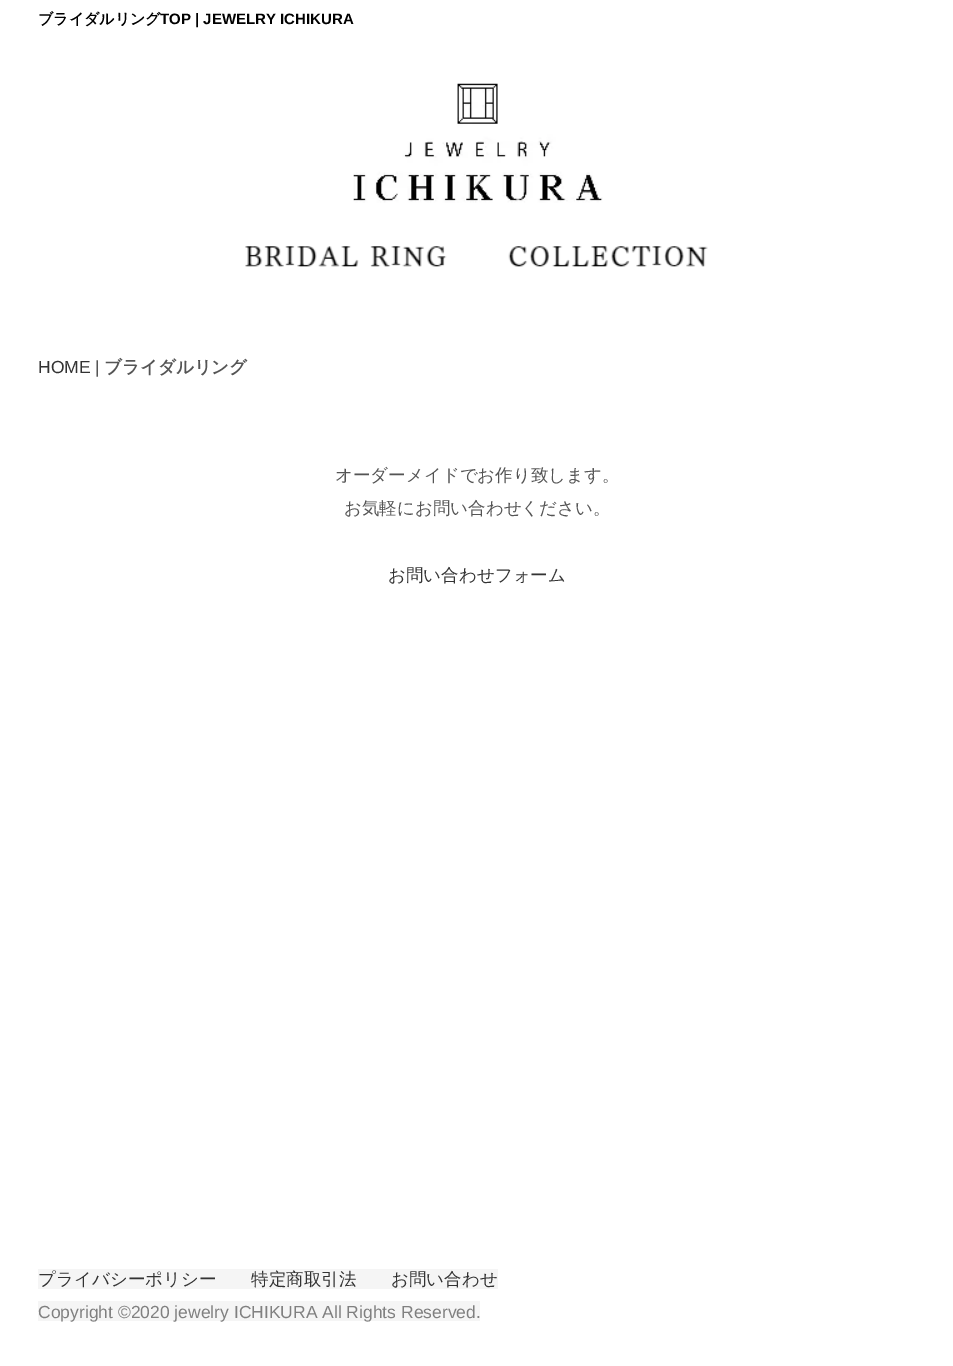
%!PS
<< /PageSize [953 1366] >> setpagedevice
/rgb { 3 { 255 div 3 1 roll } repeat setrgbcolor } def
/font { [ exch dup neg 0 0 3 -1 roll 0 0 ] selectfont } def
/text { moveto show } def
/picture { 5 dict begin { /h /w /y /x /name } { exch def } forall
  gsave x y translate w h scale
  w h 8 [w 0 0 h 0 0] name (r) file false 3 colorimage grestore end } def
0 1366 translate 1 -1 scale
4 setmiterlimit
255 255 255 rgb
0 0 953 1366 rectfill
(img_01.rgb) 353 83 250 120 picture
(img_02.rgb) 245 246 202 21 picture
(img_03.rgb) 508 246 200 21 picture
245 245 245 rgb
38 1269 460 20 rectfill
38 1301 442 20 rectfill
/WenQuanYiZenHei-Bold 15 font
0 0 0 rgb
(ブライダルリング) 38 24 text
/LiberationSans-Bold 15 font
(TOP | JEWELRY ICHIKURA) 160 24 text
/LiberationSans-Regular 17.5 font
51 51 51 rgb
(HOME) 38 373 text
85 85 85 rgb
(|) 95 373 text
/WenQuanYiZenHei-Bold 17.5 font
(ブライダルリング) 104 373 text
/WenQuanYiZenHei-Medium 17.5 font
(オーダーメイドでお作り致します。) 335 481 text
(お気軽にお問い合わせください。) 344 514 text
51 51 51 rgb
(お問い合わせフォーム) 388 581 text
(プライバシーポリシー) 38 1285 text
(特定商取引法) 251 1285 text
(お問い合わせ) 391 1285 text
/LiberationSans-Regular 17.5 font
128 128 128 rgb
(Copyright ©2020 jewelry ICHIKURA All Rights Reserved.) 38 1318 text
showpage
